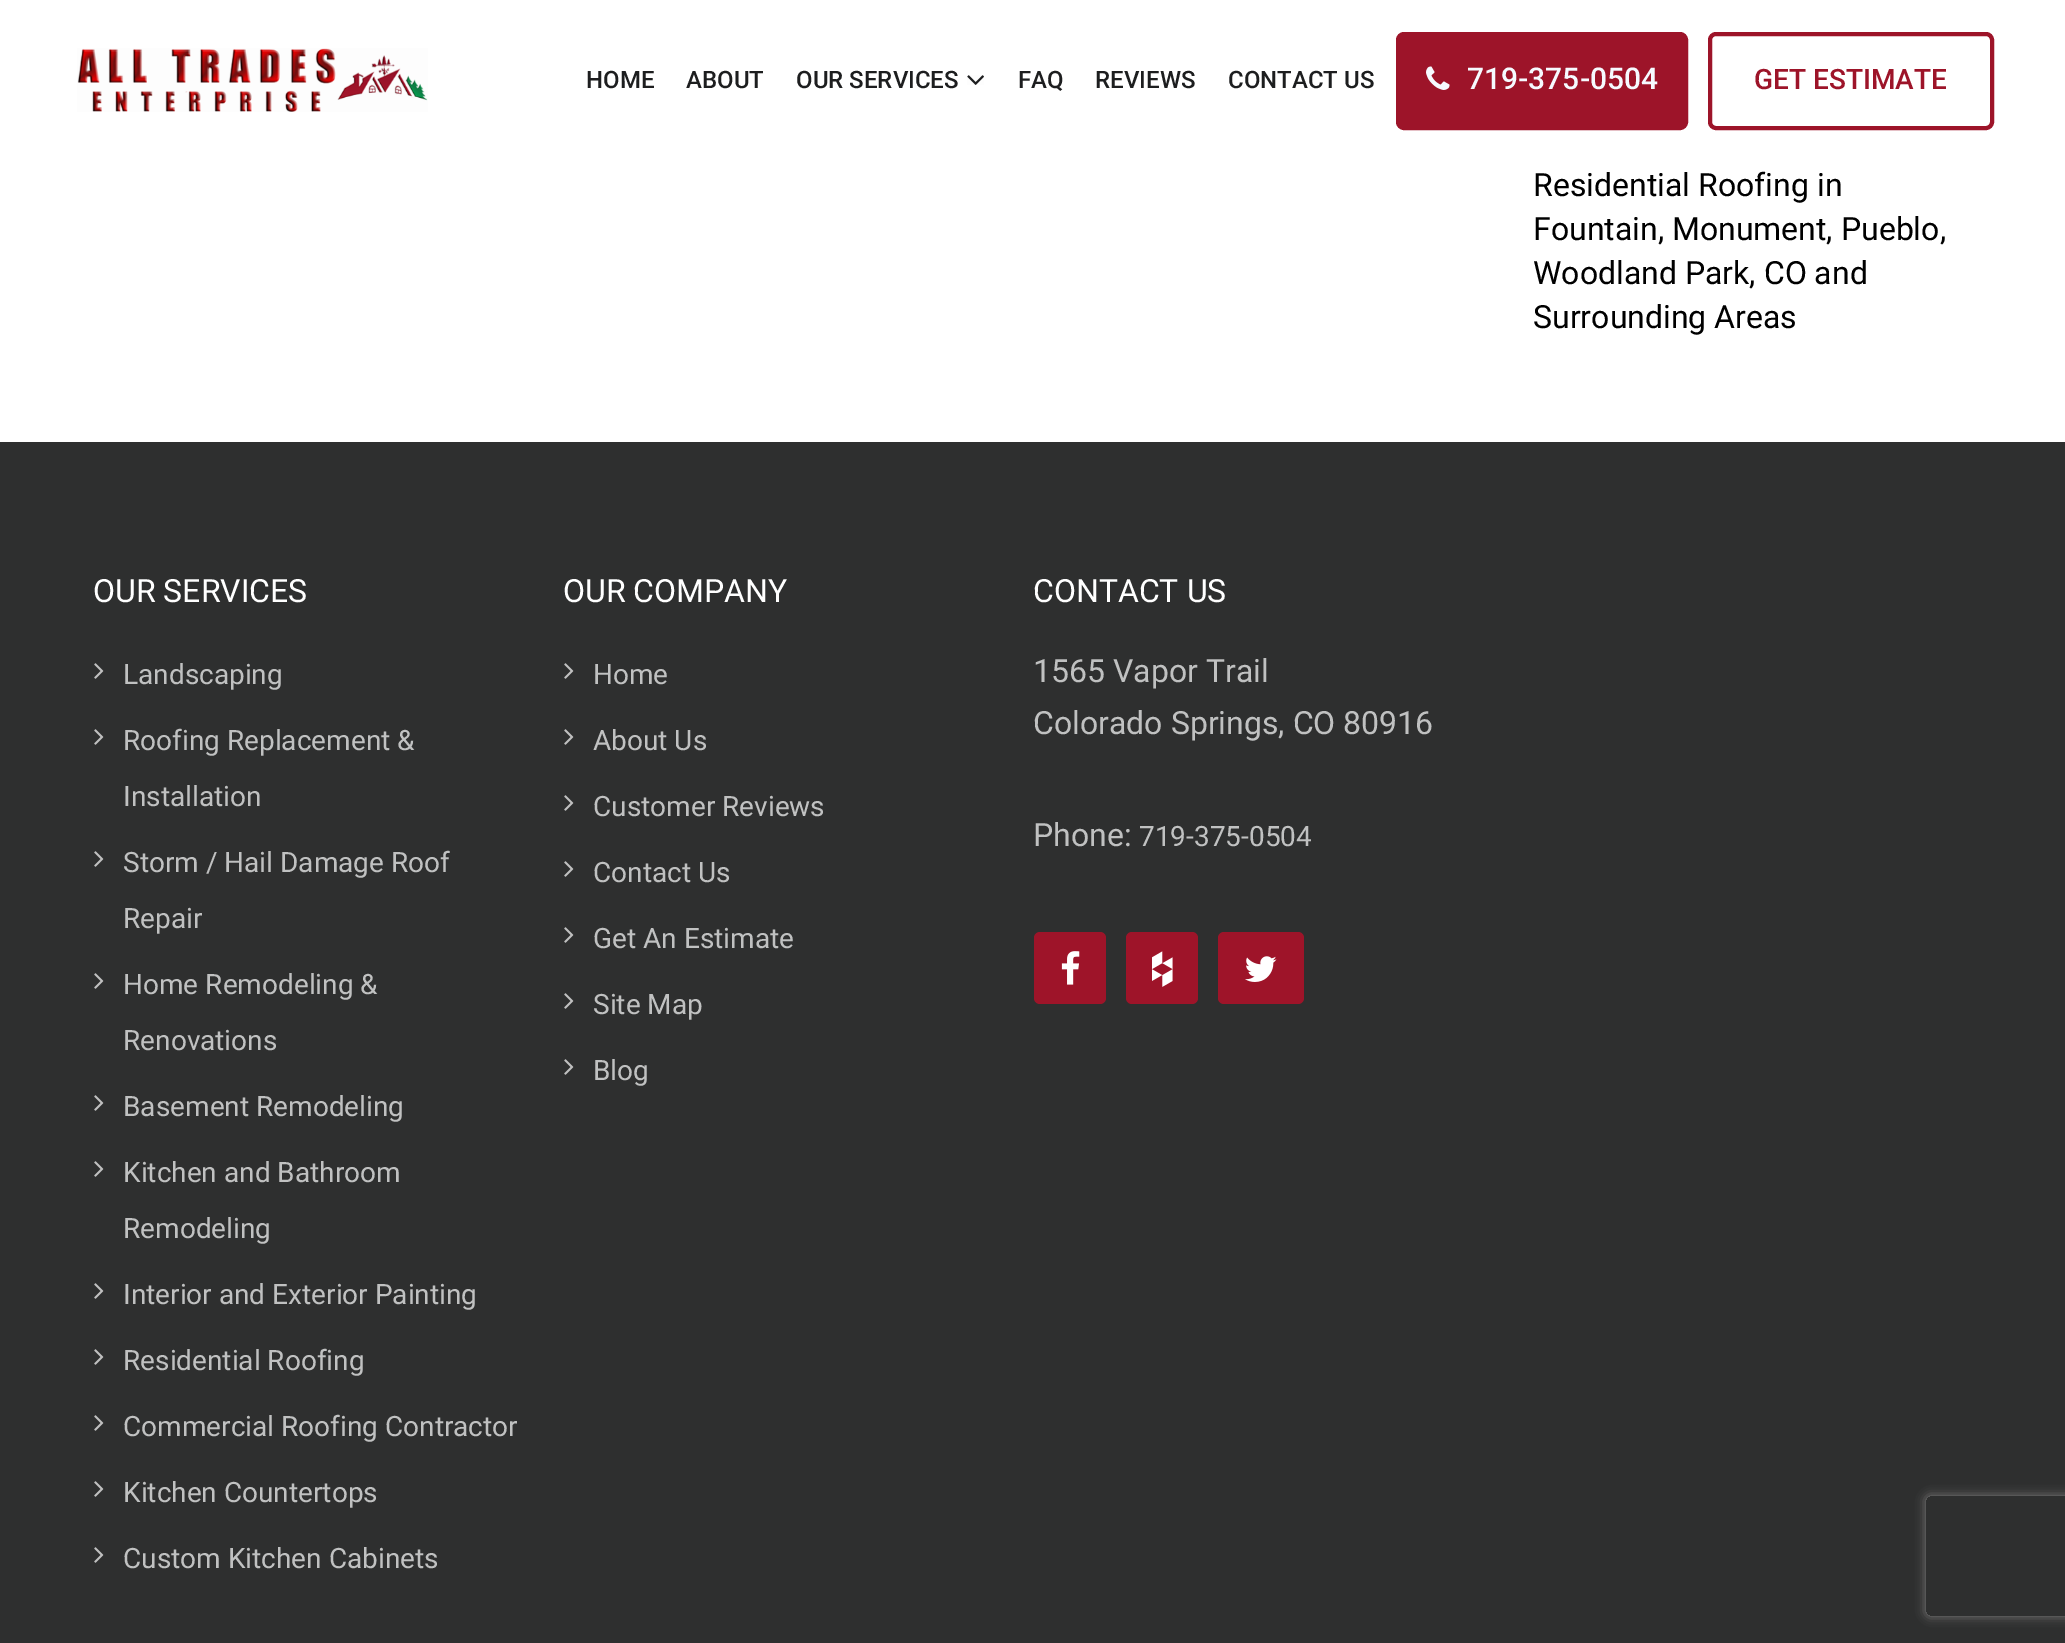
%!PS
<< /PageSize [2065 1643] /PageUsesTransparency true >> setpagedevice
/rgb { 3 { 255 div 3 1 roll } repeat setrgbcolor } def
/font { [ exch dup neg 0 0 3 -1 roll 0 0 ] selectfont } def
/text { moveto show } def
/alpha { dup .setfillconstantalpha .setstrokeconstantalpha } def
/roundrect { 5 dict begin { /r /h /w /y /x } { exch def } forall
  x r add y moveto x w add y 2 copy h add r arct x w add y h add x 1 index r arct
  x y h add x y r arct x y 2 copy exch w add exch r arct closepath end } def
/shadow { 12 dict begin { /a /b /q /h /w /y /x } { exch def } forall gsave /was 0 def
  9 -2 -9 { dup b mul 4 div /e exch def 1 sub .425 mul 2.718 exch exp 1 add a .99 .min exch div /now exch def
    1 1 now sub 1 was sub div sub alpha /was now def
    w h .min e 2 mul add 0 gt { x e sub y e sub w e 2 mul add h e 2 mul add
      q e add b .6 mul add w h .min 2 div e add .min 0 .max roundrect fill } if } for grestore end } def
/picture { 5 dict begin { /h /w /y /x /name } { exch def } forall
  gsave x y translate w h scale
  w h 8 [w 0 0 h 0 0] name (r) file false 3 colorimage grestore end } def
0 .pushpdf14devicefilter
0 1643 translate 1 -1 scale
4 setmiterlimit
255 255 255 rgb
0 0 2065 1643 rectfill
(img_01.rgb) 77 48 351 64 picture
(img_02.rgb) 967 75 17 10 picture
157 20 41 rgb
1398 34 288 94 6 roundrect gsave fill grestore
4 setlinewidth
stroke
(img_03.rgb) 1426 66 24 24 picture
1710 34 282 94 6 roundrect stroke
46 47 47 rgb
0 442 2065 1201 rectfill
(img_04.rgb) 94 663 10 16 picture
(img_04.rgb) 94 729 10 16 picture
(img_04.rgb) 94 851 10 16 picture
(img_04.rgb) 94 973 10 16 picture
(img_04.rgb) 94 1095 10 16 picture
(img_04.rgb) 94 1161 10 16 picture
(img_04.rgb) 94 1283 10 16 picture
(img_04.rgb) 94 1349 10 16 picture
(img_04.rgb) 94 1415 10 16 picture
(img_04.rgb) 94 1481 10 16 picture
(img_04.rgb) 94 1547 10 16 picture
(img_04.rgb) 564 663 10 16 picture
(img_04.rgb) 564 729 10 16 picture
(img_04.rgb) 564 795 10 16 picture
(img_04.rgb) 564 861 10 16 picture
(img_04.rgb) 564 927 10 16 picture
(img_04.rgb) 564 993 10 16 picture
(img_04.rgb) 564 1059 10 16 picture
158 20 41 rgb
1034 932 72 72 6 roundrect fill
(img_05.rgb) 1061 951 19 34 picture
1126 932 72 72 6 roundrect fill
(img_06.rgb) 1152 951 21 36 picture
1218 932 86 72 6 roundrect fill
(img_07.rgb) 1245 956 32 26 picture
gsave
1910 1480 moveto 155 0 rlineto 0 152 rlineto -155 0 rlineto closepath 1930 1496 moveto 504 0 rlineto 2 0 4 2 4 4 rcurveto 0 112 rlineto 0 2 -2 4 -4 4 rcurveto -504 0 rlineto -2 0 -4 -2 -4 -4 rcurveto 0 -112 rlineto 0 -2 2 -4 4 -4 rcurveto closepath eoclip newpath
128 128 128 rgb
1926 1496 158 120 4 5 1 shadow
grestore
/Roboto-Medium 24 font
29 30 31 rgb
(HOME) 586 88 text
(ABOUT) 686 88 text
(OUR SERVICES) 796 88 text
(FAQ) 1018 88 text
(REVIEWS) 1095 88 text
(CONTACT US) 1228 88 text
/Roboto-Medium 30 font
246 250 255 rgb
(719-375-0504) 1467 89 text
/Roboto-Medium 28 font
157 20 41 rgb
(GET ESTIMATE) 1754 89 text
/Roboto-Regular 32 font
0 0 0 rgb
(Residential Roofing in) 1533 196 text
(Fountain, Monument, Pueblo,) 1533 240 text
(Woodland Park, CO and) 1533 284 text
(Surrounding Areas) 1533 328 text
255 255 255 rgb
(OUR SERVICES) 93 602 text
/Roboto-Regular 28 font
192 193 193 rgb
(Landscaping) 123 684 text
(Roofing Replacement &) 123 750 text
(Installation) 123 806 text
(Storm / Hail Damage Roof) 123 872 text
(Repair) 123 928 text
(Home Remodeling &) 123 994 text
(Renovations) 123 1050 text
(Basement Remodeling) 123 1116 text
(Kitchen and Bathroom) 123 1182 text
(Remodeling) 123 1238 text
(Interior and Exterior Painting) 123 1304 text
(Residential Roofing) 123 1370 text
(Commercial Roofing Contractor) 123 1436 text
(Kitchen Countertops) 123 1502 text
(Custom Kitchen Cabinets) 123 1568 text
/Roboto-Regular 32 font
255 255 255 rgb
(OUR COMPANY) 563 602 text
/Roboto-Regular 28 font
192 193 193 rgb
(Home) 593 684 text
(About Us) 593 750 text
(Customer Reviews) 593 816 text
(Contact Us) 593 882 text
(Get An Estimate) 593 948 text
(Site Map) 593 1014 text
(Blog) 593 1080 text
/Roboto-Regular 32 font
255 255 255 rgb
(CONTACT US) 1033 602 text
192 193 193 rgb
(1565 Vapor Trail) 1033 682 text
(Colorado Springs, CO 80916) 1033 734 text
(Phone:) 1033 846 text
/Roboto-Regular 28 font
(719-375-0504) 1139 846 text
.poppdf14devicefilter showpage
